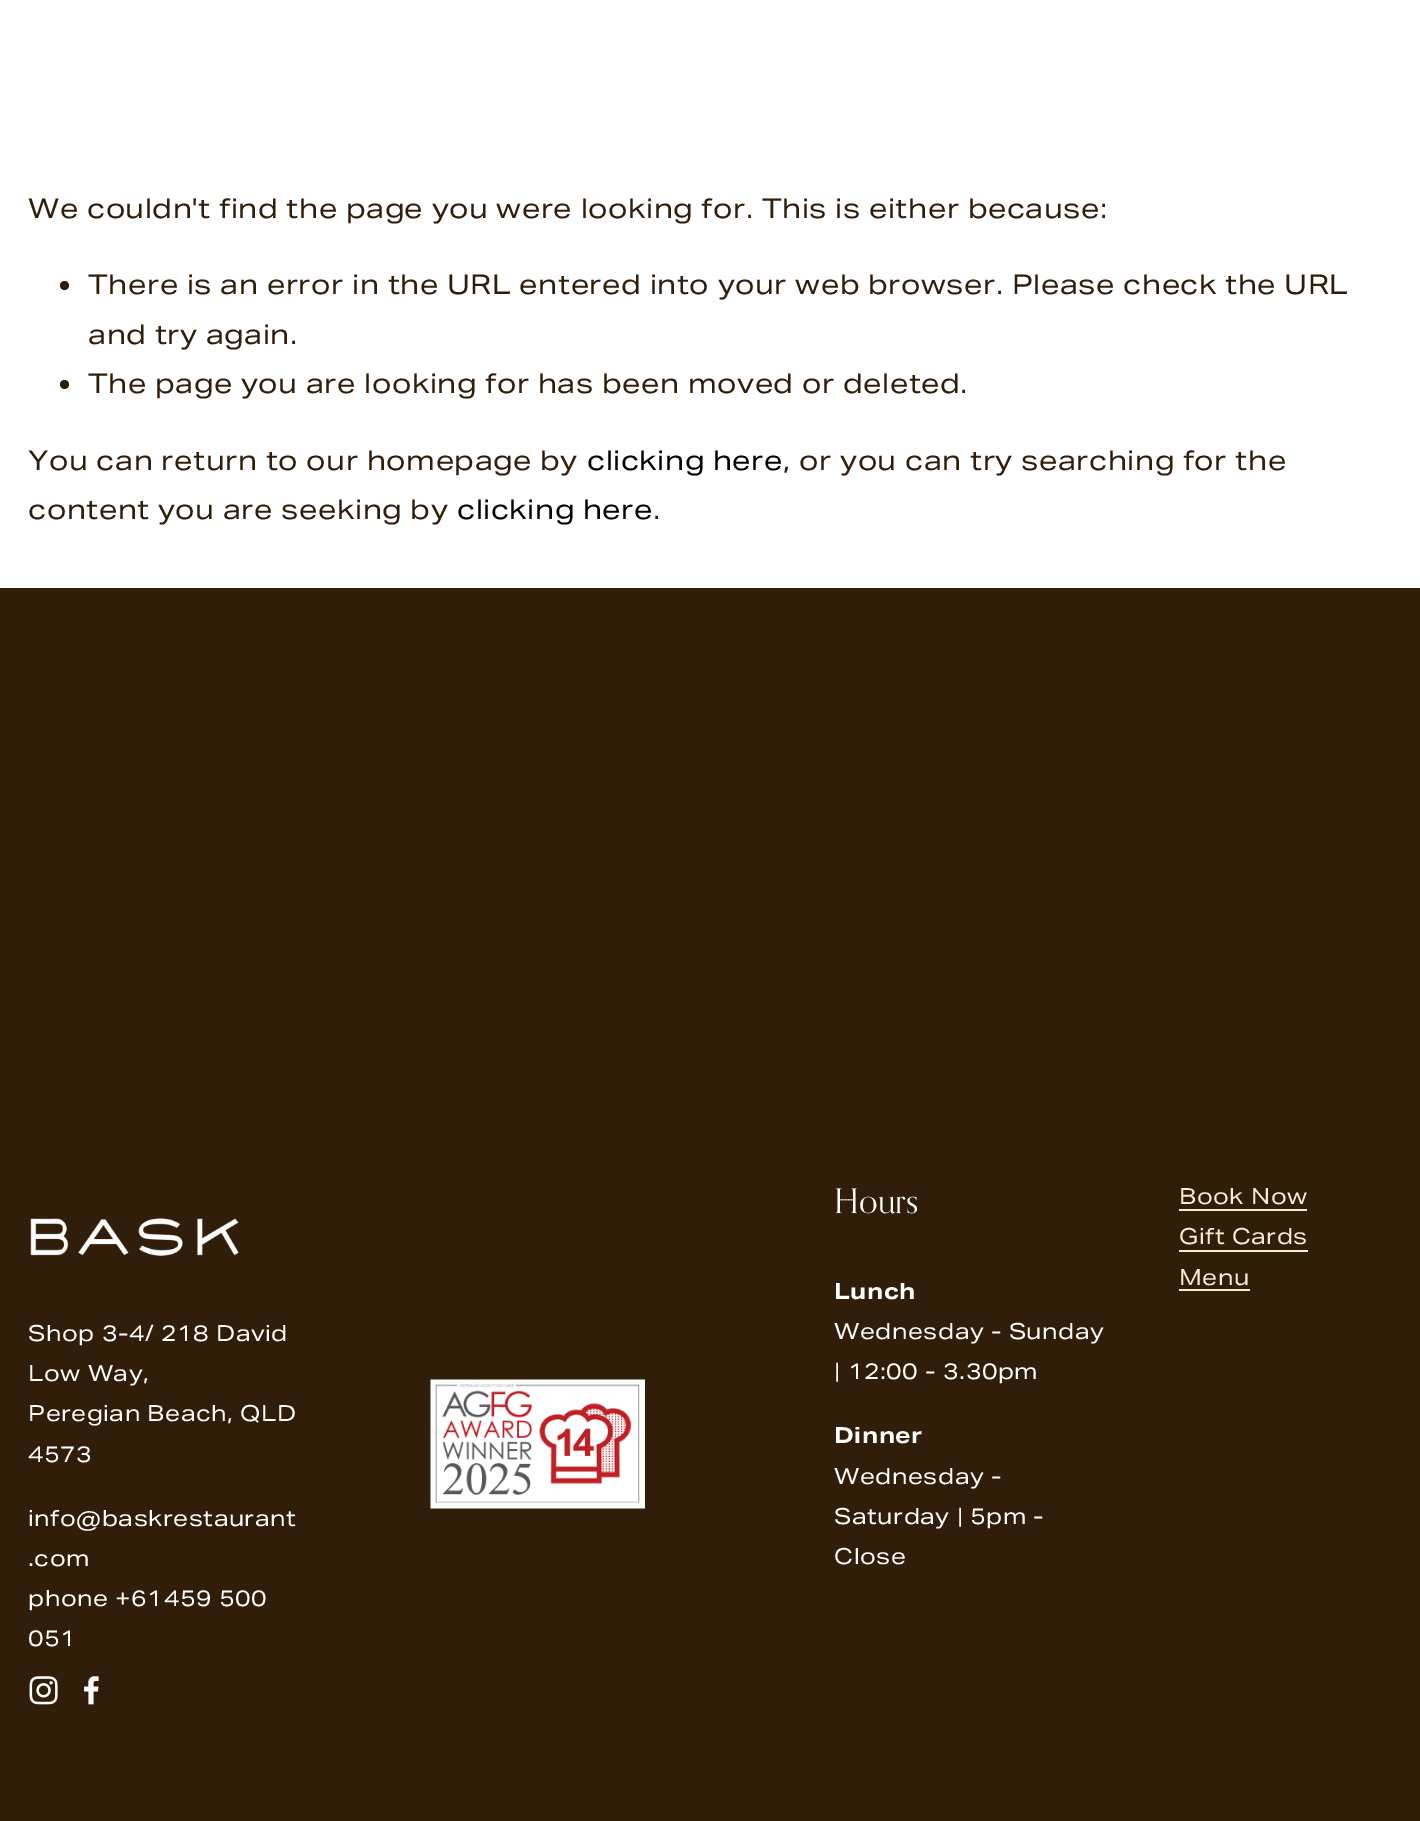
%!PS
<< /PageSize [1420 1821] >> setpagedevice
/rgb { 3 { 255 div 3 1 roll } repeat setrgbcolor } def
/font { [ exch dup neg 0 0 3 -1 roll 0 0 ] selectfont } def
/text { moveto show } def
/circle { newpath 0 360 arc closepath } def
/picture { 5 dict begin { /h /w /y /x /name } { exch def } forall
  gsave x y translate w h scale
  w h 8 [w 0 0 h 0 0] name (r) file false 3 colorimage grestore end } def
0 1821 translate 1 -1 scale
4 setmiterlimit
255 255 255 rgb
0 0 1420 1821 rectfill
48 30 10 rgb
64.5 285.5 4.5 circle fill
64.5 384.5 4.5 circle fill
0 588 1420 1233 rectfill
(img_01.rgb) 30 1218 209 38 picture
250 235 215 rgb
1179 1209 128 2 rectfill
1179 1250 129 2 rectfill
1179 1289 71 2 rectfill
(img_02.rgb) 430 1379 215 130 picture
(img_03.rgb) 29 1676 29 29 picture
(img_04.rgb) 84 1676 15 29 picture
/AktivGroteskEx-Regular 27.4 font
48 30 10 rgb
28 218 moveto 0.55 0 (We couldn't find the page you were looking for. This is either because:) ashow
88 294 moveto 0.55 0 (There is an error in the URL entered into your web browser. Please check the URL) ashow
88 344 moveto 0.55 0 (and try again.) ashow
88 393 moveto 0.55 0 (The page you are looking for has been moved or deleted.) ashow
28 470 moveto 0.55 0 (You can return to our homepage by) ashow
0 0 0 rgb
587 470 moveto 0.55 0 (clicking here) ashow
48 30 10 rgb
783 470 moveto 0.55 0 (, or you can try searching for the) ashow
28 519 moveto 0.55 0 (content you are seeking by) ashow
0 0 0 rgb
457 519 moveto 0.55 0 (clicking here) ashow
48 30 10 rgb
653 519 moveto 0.55 0 (.) ashow
/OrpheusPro-Regular 34 font
255 255 255 rgb
(Hours) 834 1213 text
/AktivGroteskEx-Bold 22.25 font
834 1299 moveto 0.55 0 (Lunch) ashow
/AktivGroteskEx-Regular 22.25 font
834 1339 moveto 0.55 0 (Wednesday - Sunday) ashow
834 1379 moveto 0.55 0 (| 12:00 - 3.30pm) ashow
/AktivGroteskEx-Bold 22.25 font
834 1443 moveto 0.55 0 (Dinner) ashow
/AktivGroteskEx-Regular 22.25 font
834 1484 moveto 0.55 0 (Wednesday -) ashow
834 1524 moveto 0.55 0 (Saturday | 5pm -) ashow
834 1564 moveto 0.55 0 (Close) ashow
250 235 215 rgb
1179 1204 moveto 0.55 0 (Book Now) ashow
1179 1244 moveto 0.55 0 (Gift Cards) ashow
1179 1285 moveto 0.55 0 (Menu) ashow
255 255 255 rgb
28 1341 moveto 0.55 0 (Shop 3-4/ 218 David) ashow
28 1381 moveto 0.55 0 (Low Way,) ashow
28 1421 moveto 0.55 0 (Peregian Beach, QLD) ashow
28 1462 moveto 0.55 0 (4573) ashow
28 1526 moveto 0.55 0 (info@baskrestaurant) ashow
28 1566 moveto 0.55 0 (.com) ashow
28 1606 moveto 0.55 0 (phone +61459 500) ashow
28 1646 moveto 0.55 0 (051) ashow
showpage
